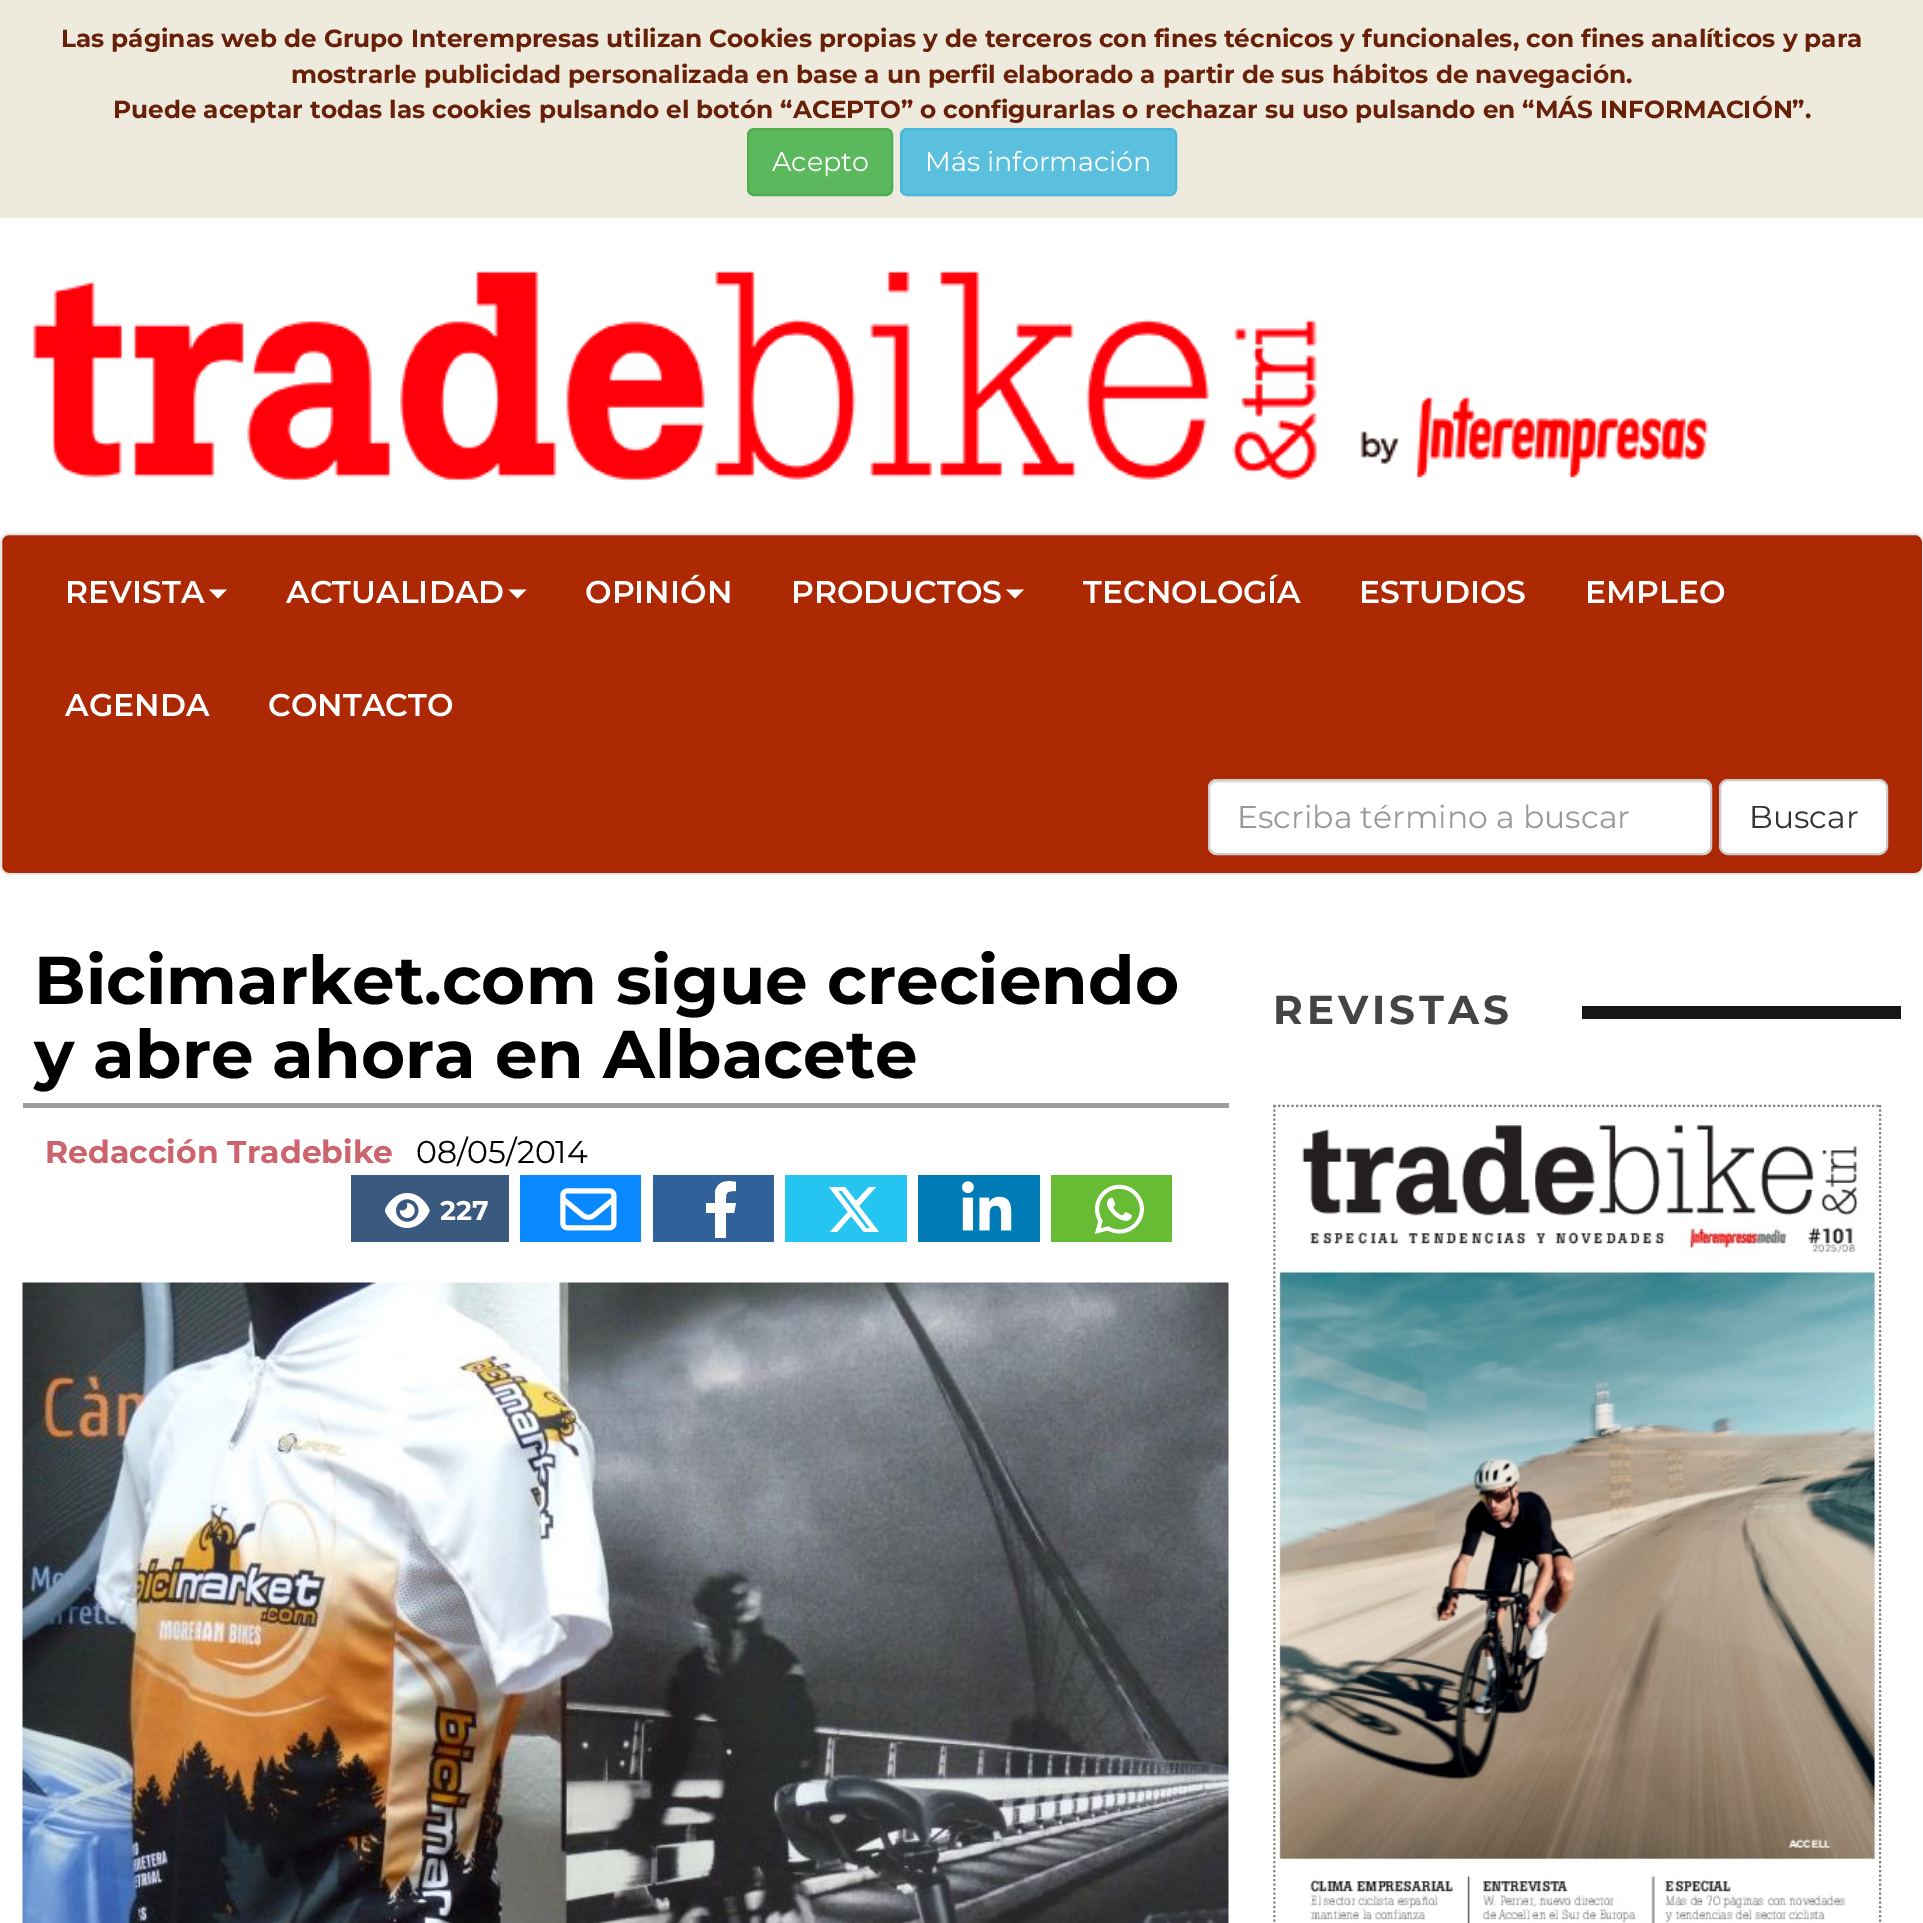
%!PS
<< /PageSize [1923 1923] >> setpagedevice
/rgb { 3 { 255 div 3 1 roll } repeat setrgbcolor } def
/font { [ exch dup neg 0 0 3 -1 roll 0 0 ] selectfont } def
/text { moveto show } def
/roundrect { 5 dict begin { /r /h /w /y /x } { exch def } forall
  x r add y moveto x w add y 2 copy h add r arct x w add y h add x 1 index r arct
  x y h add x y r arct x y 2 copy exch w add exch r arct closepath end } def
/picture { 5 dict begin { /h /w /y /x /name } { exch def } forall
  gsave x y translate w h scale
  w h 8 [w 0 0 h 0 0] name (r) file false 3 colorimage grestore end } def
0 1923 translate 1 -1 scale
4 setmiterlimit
255 255 255 rgb
0 0 1923 1923 rectfill
238 234 221 rgb
0 0 1923 218 rectfill
92 184 92 rgb
748 129 144 66 6 roundrect gsave fill grestore
76 174 76 rgb
2 setlinewidth
stroke
91 192 222 rgb
901 129 275 66 6 roundrect gsave fill grestore
70 184 218 rgb
stroke
(img_01.rgb) 33 271 1679 209 picture
172 41 3 rgb
1 534 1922 340 8 roundrect gsave fill grestore
231 231 231 rgb
stroke
255 255 255 rgb
209 589.5 moveto 18 0 rlineto -9 9 rlineto closepath fill
508.5 589.5 moveto 18 0 rlineto -9 9 rlineto closepath fill
1006 589.5 moveto 18 0 rlineto -9 9 rlineto closepath fill
1208 779 504 76 9 roundrect fill
236 236 236 rgb
1217 783 moveto 486 0 rlineto 4 0 7 3 7 7 rcurveto 0 -2 rlineto 0 -4 -3 -7 -7 -7 rcurveto -485 0 rlineto -3 0 -6 2 -7 5 rcurveto 2 -2 4 -3 6 -3 rcurveto closepath fill
204 204 204 rgb
1209 780 502 74 8 roundrect stroke
255 255 255 rgb
1720 780 167 74 8 roundrect gsave fill grestore
204 204 204 rgb
stroke
157 157 157 rgb
23 1103 1206 5 rectfill
57 89 126 rgb
351 1175 158 67 rectfill
(img_02.rgb) 385 1193 45 35 picture
10 136 255 rgb
520 1175 121 67 rectfill
(img_03.rgb) 560 1188 57 43 picture
48 97 153 rgb
653 1175 121 67 rectfill
255 255 255 rgb
734 1213 moveto 2 -10 rlineto -10 0 rlineto 0 -10 -1 -12 10 -12 rcurveto 0 -9 rlineto -9 -2 -19 -1 -21 10 rcurveto 0 11 rlineto -9 0 rlineto 0 10 rlineto 9 0 rlineto 0 25 rlineto 11 0 rlineto 0 -25 rlineto closepath fill
38 196 241 rgb
785 1175 122 67 rectfill
255 255 255 rgb
869 1187 moveto 7 0 rlineto -17 19 rlineto 20 26 rlineto -15 0 rlineto -13 -16 rlineto -14 16 rlineto -7 0 rlineto 18 -20 rlineto -19 -25 rlineto 16 0 rlineto 11 14 rlineto closepath 866 1228 moveto 4 0 rlineto -28 -37 rlineto -4 0 rlineto closepath fill
0 123 182 rgb
918 1175 122 67 rectfill
(img_04.rgb) 962 1181 50 50 picture
103 188 52 rgb
1051 1175 121 67 rectfill
(img_05.rgb) 1094 1184 50 50 picture
(img_06.rgb) 22 1282 1207 641 picture
22 22 22 rgb
1582 1006 319 13 rectfill
128 128 128 rgb
2.2 setlinewidth
[2.25 2.25] 0 setdash
1273.5 1106 moveto 607.5 0 rlineto stroke
1274.5 1105 moveto 0 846 rlineto stroke
1880 1105 moveto 0 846 rlineto stroke
(img_07.rgb) 1275 1107 604 816 picture
/Montserrat-Bold 24.75 font
104 32 8 rgb
(Las páginas web de Grupo Interempresas utilizan Cookies propias y de terceros con fines técnicos y funcionales, con fines analíticos y para) 61 47 text
(mostrarle publicidad personalizada en base a un perfil elaborado a partir de sus hábitos de navegación.) 291 83 text
(Puede aceptar todas las cookies pulsando el botón “ACEPTO” o configurarlas o rechazar su uso pulsando en “MÁS INFORMACIÓN”.) 113 118 text
/Montserrat-Regular 27 font
255 255 255 rgb
(Acepto) 772 171 text
(Más información) 925 171 text
/Montserrat-SemiBold 31.5 font
(REVISTA) 65 603 text
(ACTUALIDAD) 286 603 text
(OPINIÓN) 585 603 text
(PRODUCTOS) 791 603 text
(TECNOLOGÍA) 1083 603 text
(ESTUDIOS) 1359 603 text
(EMPLEO) 1585 603 text
(AGENDA) 65 716 text
(CONTACTO) 268 716 text
/Montserrat-Regular 31.5 font
153 153 153 rgb
(Escriba término a buscar) 1237 828 text
51 51 51 rgb
(Buscar) 1749 828 text
/Montserrat-Bold 67.5 font
0 0 0 rgb
(Bicimarket.com sigue creciendo) 34 1004 text
(y abre ahora en Albacete) 34 1078 text
/Montserrat-Bold 31.5 font
204 100 109 rgb
(Redacción Tradebike) 45 1163 text
/Montserrat-Regular 31.5 font
0 0 0 rgb
(08/05/2014) 416 1163 text
/Montserrat-Bold 27 font
255 255 255 rgb
(227) 440 1220 text
/Montserrat-Bold 40.5 font
68 68 69 rgb
1273 1024 moveto 4 0 (REVISTAS) ashow
showpage
